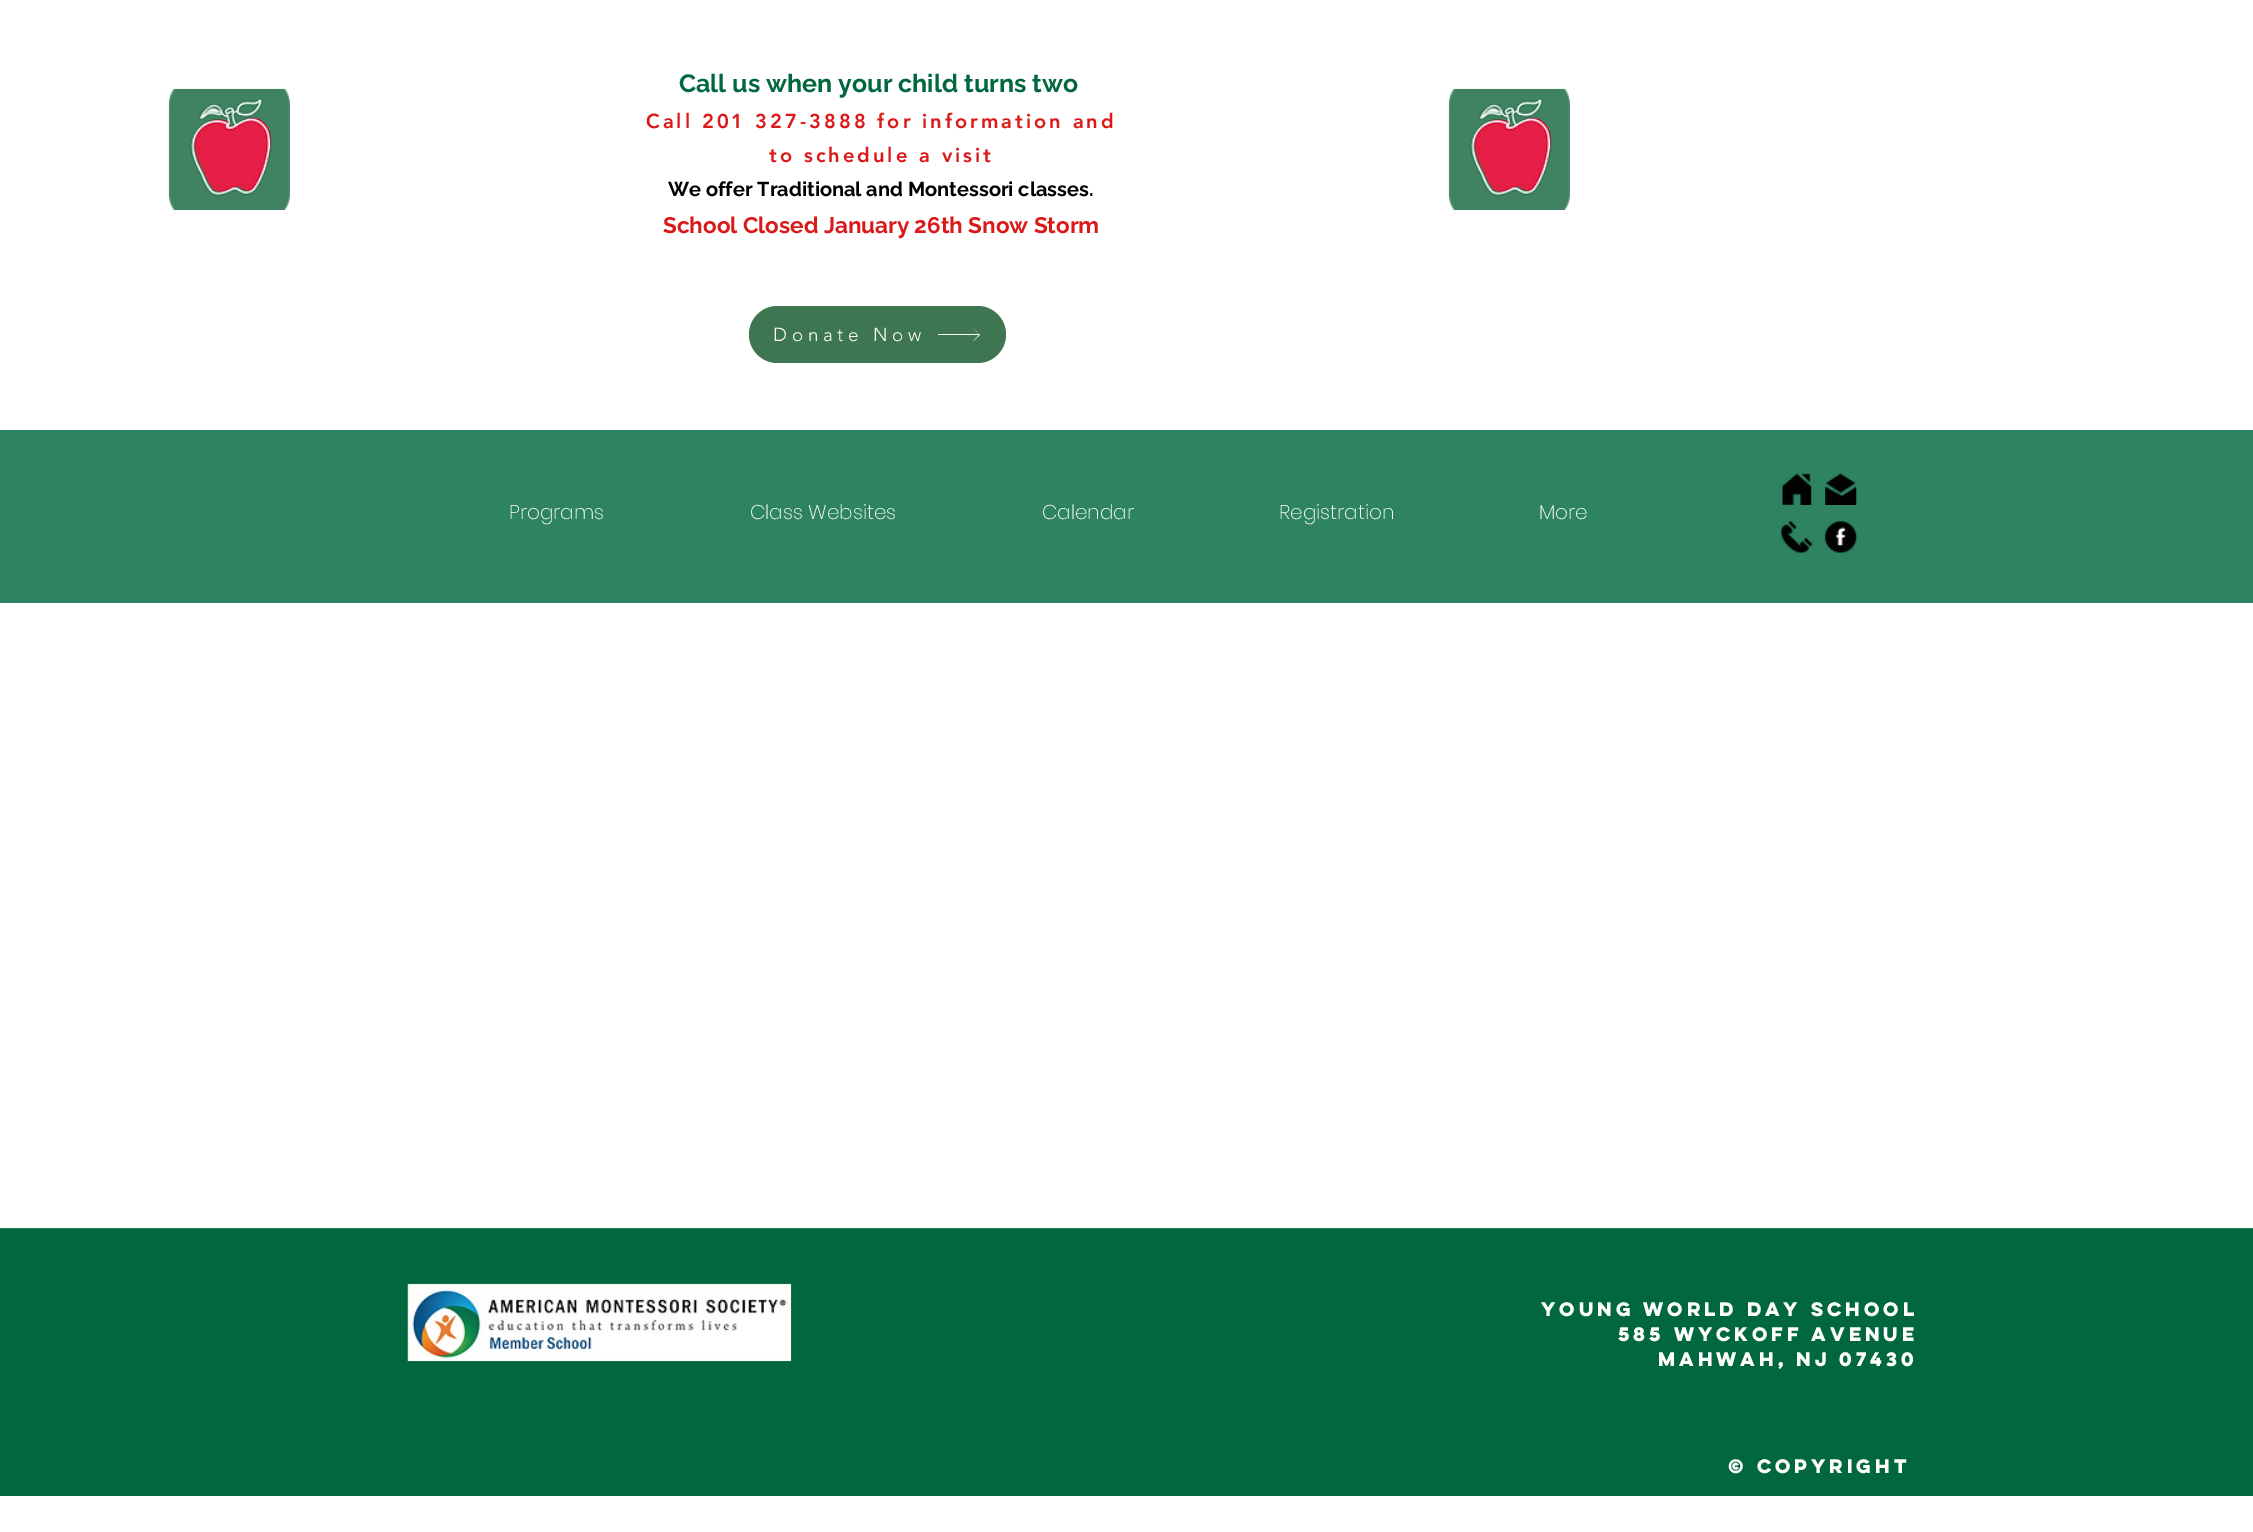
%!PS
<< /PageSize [2253 1532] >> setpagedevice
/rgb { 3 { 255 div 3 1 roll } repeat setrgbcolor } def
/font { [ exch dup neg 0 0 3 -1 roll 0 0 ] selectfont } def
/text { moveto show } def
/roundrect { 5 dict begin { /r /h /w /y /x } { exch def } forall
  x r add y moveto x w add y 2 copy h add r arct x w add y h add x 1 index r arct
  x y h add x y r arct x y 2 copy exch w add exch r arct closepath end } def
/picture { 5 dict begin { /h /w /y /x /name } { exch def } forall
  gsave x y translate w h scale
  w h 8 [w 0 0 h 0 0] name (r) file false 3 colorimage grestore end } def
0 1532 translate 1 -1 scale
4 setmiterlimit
255 255 255 rgb
0 0 2253 1532 rectfill
(img_01.rgb) 168 88 122 122 picture
(img_01.rgb) 1448 88 122 122 picture
63 118 82 rgb
749 306 257 57 28.5 roundrect fill
255 255 255 rgb
973 328 moveto 6 6 rlineto -41 0 rlineto 0 1 rlineto 41 0 rlineto -6 6 rlineto 7 -6 rlineto closepath fill
46 131 97 rgb
0 430 2253 173 rectfill
(img_02.rgb) 1782 473 30 32 picture
(img_03.rgb) 1825 473 32 32 picture
(img_04.rgb) 1781 521 32 32 picture
(img_05.rgb) 1825 521 32 32 picture
0 103 62 rgb
0 1229 2253 267 rectfill
38 126 91 rgb
0 1228 2253 1 rectfill
(img_06.rgb) 407 1283 385 79 picture
/Raleway-Bold 25 font
0 103 62 rgb
(Call us when your child turns two) 679 92 text
/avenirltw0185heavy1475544-Black 20 font
220 25 25 rgb
646 128 moveto 3 0 (Call 201 327-3888 for information and) ashow
769 162 moveto 3 0 (to schedule a visit) ashow
/Raleway-Bold 20 font
0 0 0 rgb
(We offer Traditional and Montessori classes.) 668 196 text
/Raleway-Bold 22.5 font
220 25 25 rgb
(School Closed January 26th Snow Storm) 663 233 text
/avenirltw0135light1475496-Light 18.75 font
255 255 255 rgb
773 341 moveto 4.75 0 (Donate Now) ashow
/Poppins-ExtraLight 20 font
(Programs) 509 519 text
(Class Websites) 750 519 text
(Calendar) 1042 519 text
(Registration) 1279 519 text
(More) 1539 519 text
/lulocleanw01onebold-Bold 17.5 font
(Young World Day School) 1541 1316 text
(585 Wyckoff Avenue) 1618 1341 text
(Mahwah, NJ 07430) 1658 1366 text
(© Copyright) 1728 1473 text
showpage
